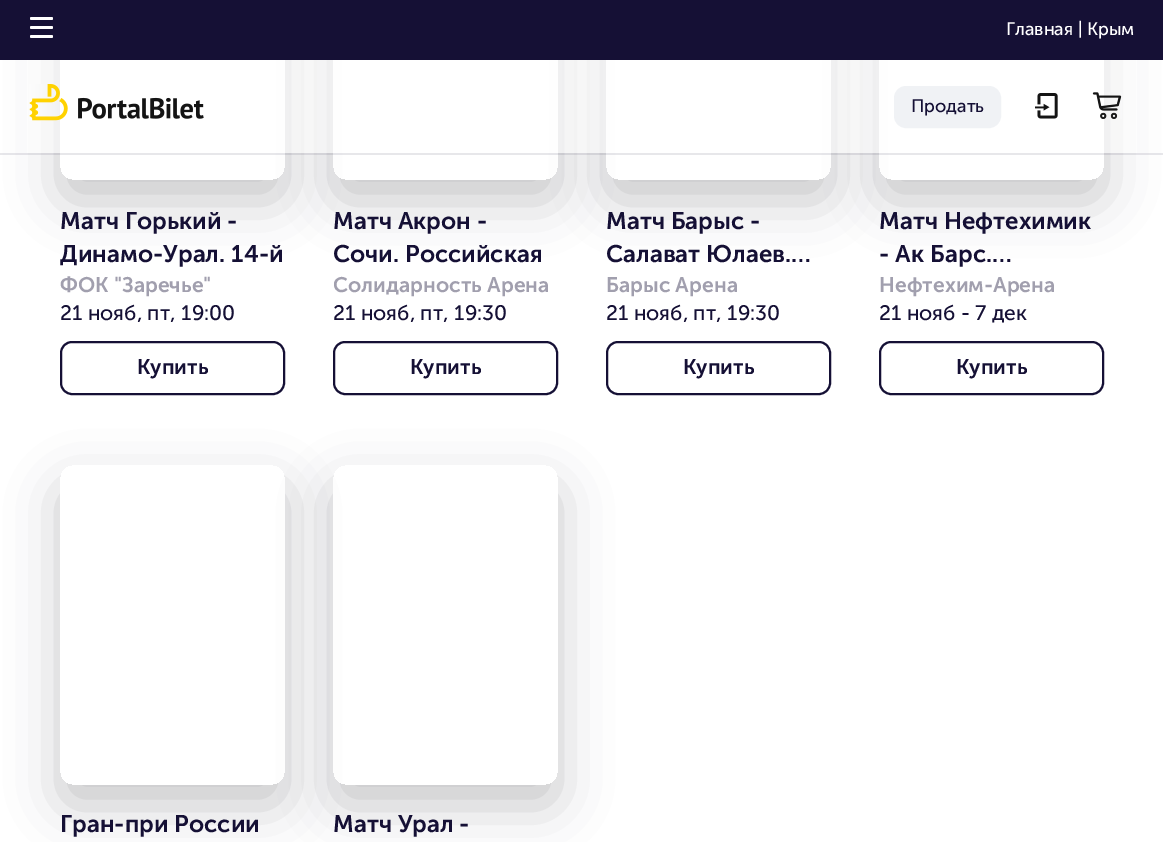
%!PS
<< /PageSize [1163 842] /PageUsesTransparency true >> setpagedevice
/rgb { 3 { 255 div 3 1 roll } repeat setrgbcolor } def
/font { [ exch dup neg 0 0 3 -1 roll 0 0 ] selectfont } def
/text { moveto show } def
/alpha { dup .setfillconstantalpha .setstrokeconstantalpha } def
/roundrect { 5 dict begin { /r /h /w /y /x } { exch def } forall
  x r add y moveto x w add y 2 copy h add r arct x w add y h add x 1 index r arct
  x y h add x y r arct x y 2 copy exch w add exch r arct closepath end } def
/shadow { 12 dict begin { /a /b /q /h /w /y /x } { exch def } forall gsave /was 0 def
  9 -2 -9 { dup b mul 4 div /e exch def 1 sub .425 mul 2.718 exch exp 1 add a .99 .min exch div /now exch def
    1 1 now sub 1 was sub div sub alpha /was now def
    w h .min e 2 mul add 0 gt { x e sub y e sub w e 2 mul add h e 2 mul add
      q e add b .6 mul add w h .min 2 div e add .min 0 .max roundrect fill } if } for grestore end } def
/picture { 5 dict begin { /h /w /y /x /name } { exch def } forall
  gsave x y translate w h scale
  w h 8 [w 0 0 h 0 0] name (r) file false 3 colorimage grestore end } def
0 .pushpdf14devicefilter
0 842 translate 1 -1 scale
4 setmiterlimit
255 255 255 rgb
0 0 1163 842 rectfill
gsave
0 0 moveto 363 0 rlineto 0 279 rlineto -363 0 rlineto closepath 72 -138 moveto 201 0 rlineto 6.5 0 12 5.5 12 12 rcurveto 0 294 rlineto 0 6.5 -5.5 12 -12 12 rcurveto -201 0 rlineto -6.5 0 -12 -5.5 -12 -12 rcurveto 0 -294 rlineto 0 -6.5 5.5 -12 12 -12 rcurveto closepath eoclip newpath
34 35 46 rgb
60 -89 225 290 12 25.5 0.25 shadow
grestore
gsave
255 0 moveto 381 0 rlineto 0 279 rlineto -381 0 rlineto closepath 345 -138 moveto 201 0 rlineto 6.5 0 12 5.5 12 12 rcurveto 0 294 rlineto 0 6.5 -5.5 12 -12 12 rcurveto -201 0 rlineto -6.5 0 -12 -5.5 -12 -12 rcurveto 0 -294 rlineto 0 -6.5 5.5 -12 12 -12 rcurveto closepath eoclip newpath
34 35 46 rgb
333 -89 225 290 12 25.5 0.25 shadow
grestore
gsave
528 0 moveto 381 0 rlineto 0 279 rlineto -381 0 rlineto closepath 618 -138 moveto 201 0 rlineto 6.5 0 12 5.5 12 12 rcurveto 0 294 rlineto 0 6.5 -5.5 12 -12 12 rcurveto -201 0 rlineto -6.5 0 -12 -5.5 -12 -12 rcurveto 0 -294 rlineto 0 -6.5 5.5 -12 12 -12 rcurveto closepath eoclip newpath
34 35 46 rgb
606 -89 225 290 12 25.5 0.25 shadow
grestore
gsave
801 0 moveto 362 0 rlineto 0 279 rlineto -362 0 rlineto closepath 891 -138 moveto 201 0 rlineto 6.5 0 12 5.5 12 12 rcurveto 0 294 rlineto 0 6.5 -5.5 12 -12 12 rcurveto -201 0 rlineto -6.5 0 -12 -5.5 -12 -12 rcurveto 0 -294 rlineto 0 -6.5 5.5 -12 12 -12 rcurveto closepath eoclip newpath
34 35 46 rgb
879 -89 225 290 12 25.5 0.25 shadow
grestore
21 16 53 rgb
0 0 1163 60 rectfill
255 255 255 rgb
30 17 23 3 1.5 roundrect fill
30 26 23 3 1.5 roundrect fill
30 35 23 3 1.5 roundrect fill
0.5 alpha
27 60 1110 93 rectfill
1 alpha
(img_01.rgb) 29 84 175 37 picture
240 242 245 rgb
895 87 105 40 11 roundrect gsave fill grestore
2 setlinewidth
stroke
(img_02.rgb) 1035 93 23 26 picture
(img_03.rgb) 1092 92 30 27 picture
0.1 alpha
21 16 53 rgb
0 153 1163 2 rectfill
1 alpha
61 342 223 52 11 roundrect stroke
334 342 223 52 11 roundrect stroke
607 342 223 52 11 roundrect stroke
880 342 223 52 11 roundrect stroke
gsave
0 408 moveto 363 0 rlineto 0 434 rlineto -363 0 rlineto closepath 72 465 moveto 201 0 rlineto 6.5 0 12 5.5 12 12 rcurveto 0 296 rlineto 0 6.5 -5.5 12 -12 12 rcurveto -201 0 rlineto -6.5 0 -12 -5.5 -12 -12 rcurveto 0 -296 rlineto 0 -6.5 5.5 -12 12 -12 rcurveto closepath eoclip newpath
34 35 46 rgb
60 486 225 320 12 25.5 0.25 shadow
grestore
gsave
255 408 moveto 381 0 rlineto 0 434 rlineto -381 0 rlineto closepath 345 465 moveto 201 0 rlineto 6.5 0 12 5.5 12 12 rcurveto 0 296 rlineto 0 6.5 -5.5 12 -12 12 rcurveto -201 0 rlineto -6.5 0 -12 -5.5 -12 -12 rcurveto 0 -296 rlineto 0 -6.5 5.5 -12 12 -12 rcurveto closepath eoclip newpath
34 35 46 rgb
333 486 225 320 12 25.5 0.25 shadow
grestore
/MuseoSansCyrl-Regular 18 font
255 255 255 rgb
(Главная | Крым) 1006 35 text
21 16 53 rgb
(Продать) 911 112 text
/MuseoSansCyrl-SemiBold 24 font
(Матч Горький -) 60 229 text
(Динамо-Урал. 14-й) 60 262 text
/MuseoSansCyrl-SemiBold 21 font
161 159 174 rgb
(ФОК "Заречье") 60 292 text
/MuseoSansCyrl-Regular 21 font
21 16 53 rgb
(21 нояб, пт, 19:00) 60 320 text
/MuseoSansCyrl-SemiBold 21 font
(Купить) 137 374 text
/MuseoSansCyrl-SemiBold 24 font
(Матч Акрон -) 333 229 text
(Сочи. Российская) 333 262 text
/MuseoSansCyrl-SemiBold 21 font
161 159 174 rgb
(Солидарность Арена) 333 292 text
/MuseoSansCyrl-Regular 21 font
21 16 53 rgb
(21 нояб, пт, 19:30) 333 320 text
/MuseoSansCyrl-SemiBold 21 font
(Купить) 410 374 text
/MuseoSansCyrl-SemiBold 24 font
(Матч Барыс -) 606 229 text
(Салават Юлаев.…) 606 262 text
/MuseoSansCyrl-SemiBold 21 font
161 159 174 rgb
(Барыс Арена) 606 292 text
/MuseoSansCyrl-Regular 21 font
21 16 53 rgb
(21 нояб, пт, 19:30) 606 320 text
/MuseoSansCyrl-SemiBold 21 font
(Купить) 683 374 text
/MuseoSansCyrl-SemiBold 24 font
(Матч Нефтехимик) 879 229 text
(- Ак Барс.…) 879 262 text
/MuseoSansCyrl-SemiBold 21 font
161 159 174 rgb
(Нефтехим-Арена) 879 292 text
/MuseoSansCyrl-Regular 21 font
21 16 53 rgb
(21 нояб - 7 дек) 879 320 text
/MuseoSansCyrl-SemiBold 21 font
(Купить) 956 374 text
/MuseoSansCyrl-SemiBold 24 font
(Гран-при России) 60 832 text
(Матч Урал -) 333 832 text
.poppdf14devicefilter showpage
